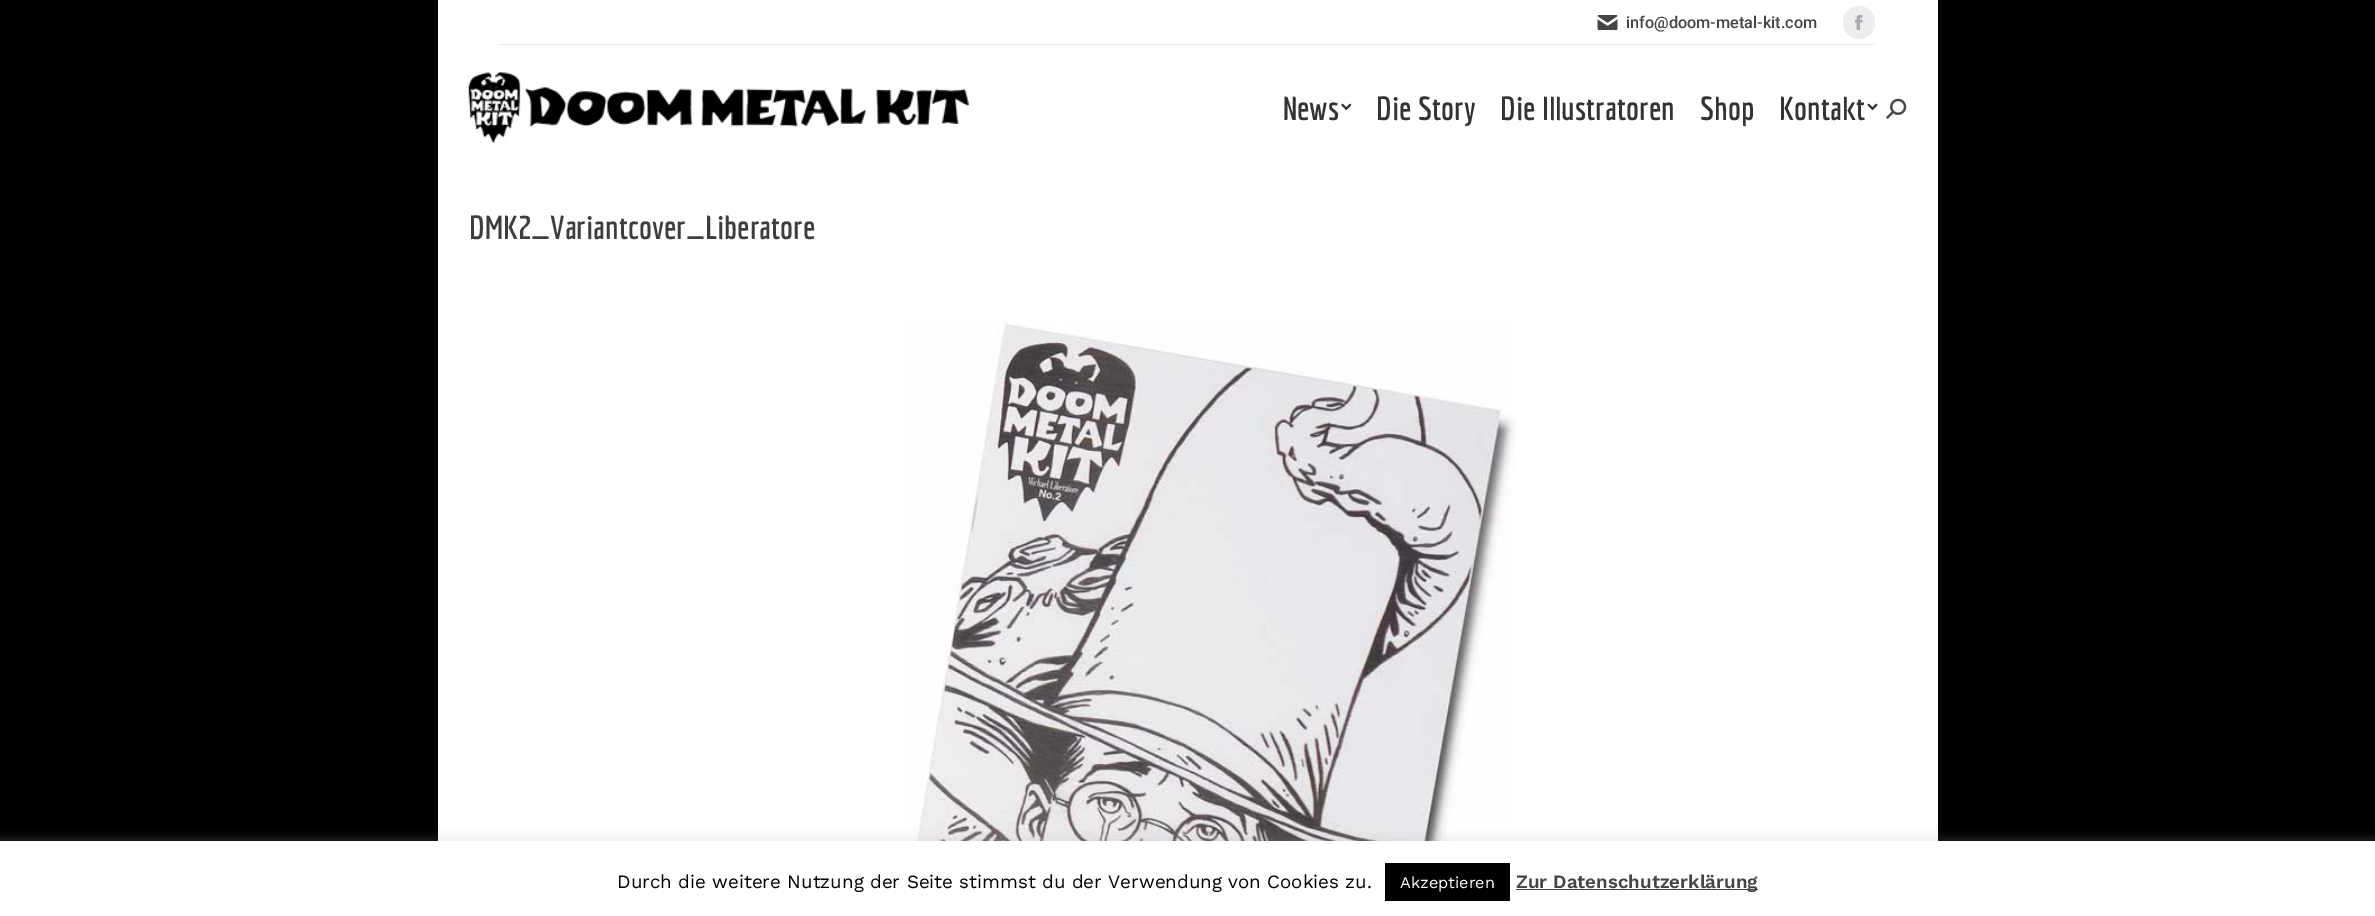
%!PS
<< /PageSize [2375 916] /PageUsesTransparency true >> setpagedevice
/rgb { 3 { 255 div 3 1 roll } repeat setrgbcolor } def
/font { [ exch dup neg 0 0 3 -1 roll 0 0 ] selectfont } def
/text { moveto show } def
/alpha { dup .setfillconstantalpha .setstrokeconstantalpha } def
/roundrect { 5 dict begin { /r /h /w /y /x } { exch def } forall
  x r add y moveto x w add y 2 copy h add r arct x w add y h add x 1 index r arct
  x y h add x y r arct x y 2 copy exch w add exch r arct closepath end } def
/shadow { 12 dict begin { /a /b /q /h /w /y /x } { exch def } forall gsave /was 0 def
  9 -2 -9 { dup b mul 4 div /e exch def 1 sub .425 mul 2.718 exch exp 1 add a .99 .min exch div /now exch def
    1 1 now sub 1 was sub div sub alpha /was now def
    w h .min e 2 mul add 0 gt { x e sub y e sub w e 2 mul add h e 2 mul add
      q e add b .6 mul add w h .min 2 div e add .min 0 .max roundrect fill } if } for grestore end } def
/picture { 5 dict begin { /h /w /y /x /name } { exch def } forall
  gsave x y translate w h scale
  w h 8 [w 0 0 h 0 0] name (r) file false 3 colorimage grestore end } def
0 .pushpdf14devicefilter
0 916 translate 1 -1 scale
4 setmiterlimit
0 0 0 rgb
0 0 2375 916 rectfill
255 255 255 rgb
438 0 1500 841 rectfill
(img_01.rgb) 1597 15 21 15 picture
237 237 238 rgb
1843 6 32 33 16 roundrect fill
(img_02.rgb) 1855 15 8 15 picture
231 231 231 rgb
500 44 1375 1 rectfill
(img_03.rgb) 468 72 501 71 picture
(img_04.rgb) 1341 103 11 7 picture
(img_05.rgb) 1867 103 11 7 picture
(img_06.rgb) 1886 98 21 21 picture
(img_07.rgb) 900 323 616 518 picture
172 171 171 rgb
0 840 2375 75 0 6 0.3 shadow
255 255 255 rgb
0 841 2375 75 rectfill
0 0 0 rgb
1385 863 125 38 rectfill
68 68 68 rgb
1516 889 242 1 rectfill
/Roboto-Medium 16.25 font
71 68 68 rgb
(info@doom-metal-kit.com) 1626 28 text
/Economica-Bold 32.5 font
51 51 51 rgb
(News) 1283 120 text
(Die Story) 1376 120 text
(Die Illustratoren) 1500 120 text
(Shop) 1700 120 text
(Kontakt) 1779 120 text
61 61 61 rgb
(DMK2_Variantcover_Liberatore) 469 239 text
/WorkSans-Regular 18.75 font
0 0 0 rgb
(Durch die weitere Nutzung der Seite stimmst du der Verwendung von Cookies zu.) 617 888 text
/WorkSans-Regular 16.25 font
255 255 255 rgb
(Akzeptieren) 1400 888 text
/WorkSans-SemiBold 18.75 font
71 68 68 rgb
(Zur Datenschutzerklärung) 1516 888 text
.poppdf14devicefilter showpage
